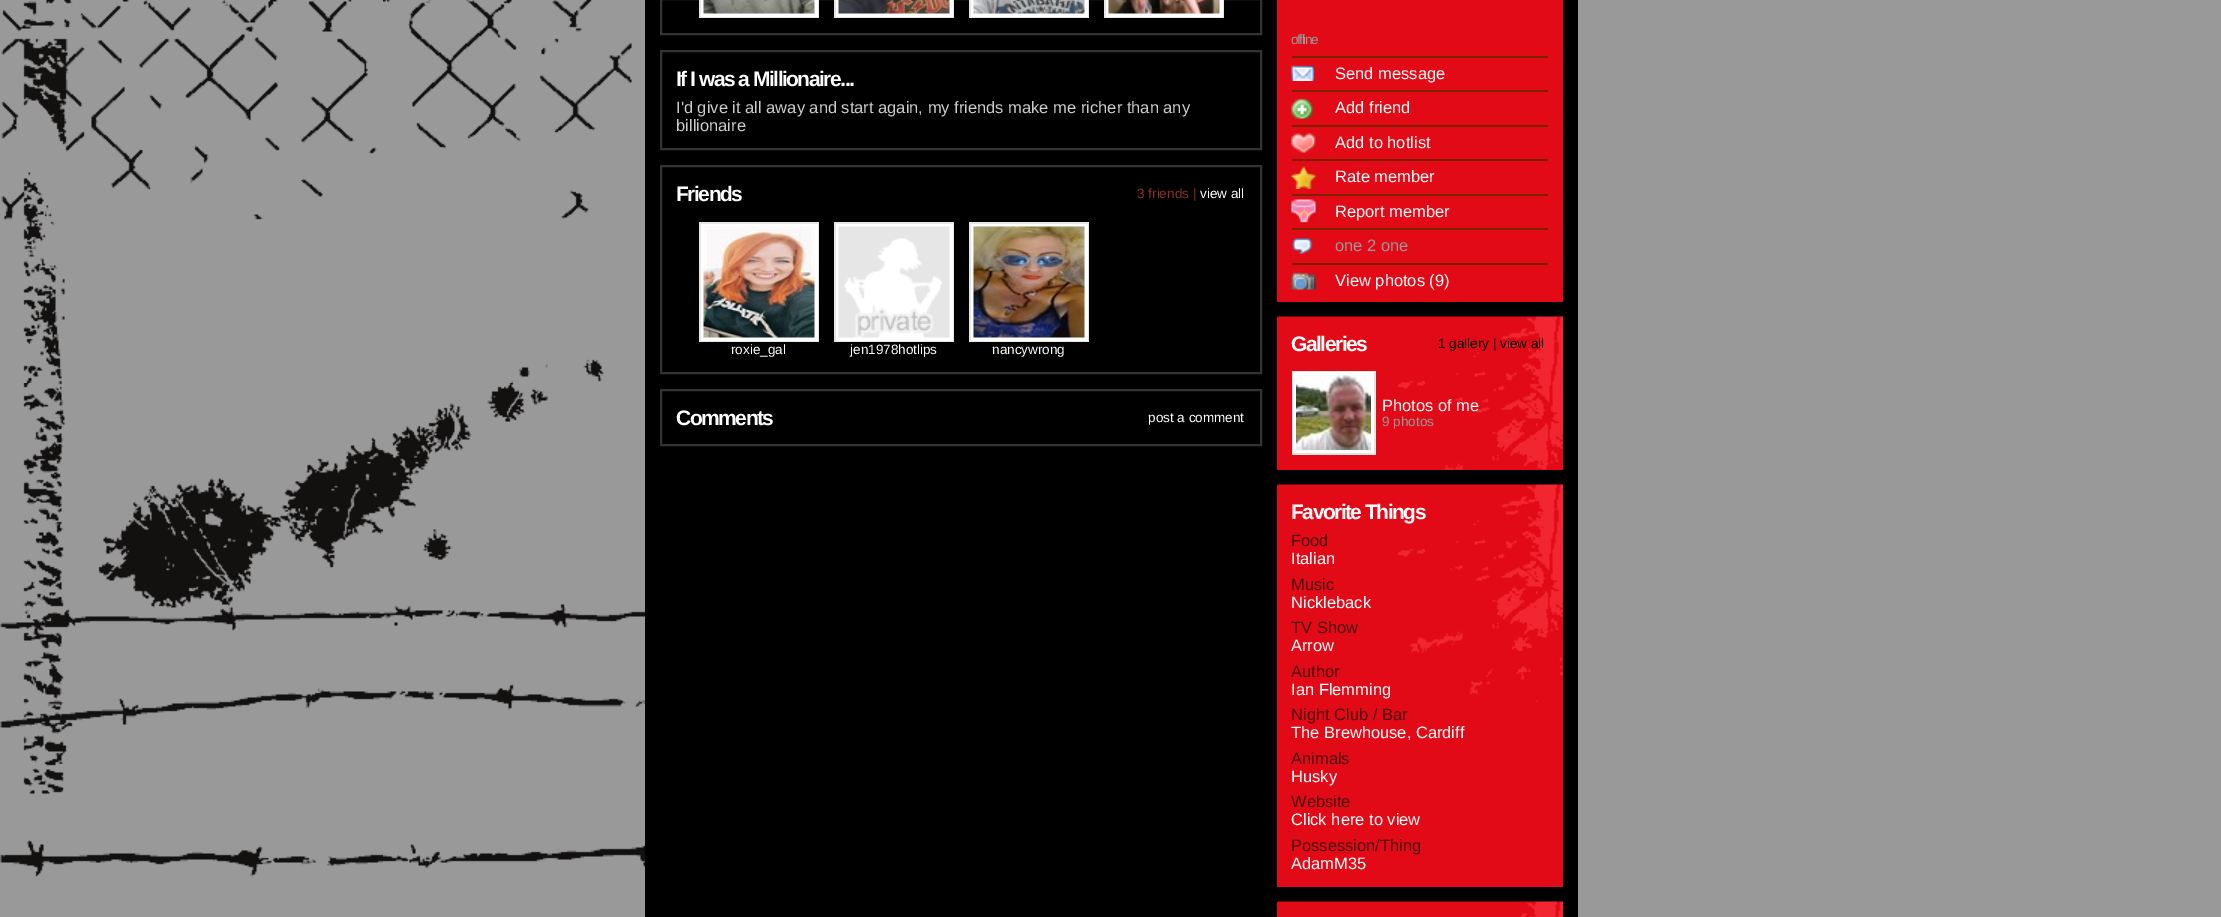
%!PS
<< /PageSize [2221 917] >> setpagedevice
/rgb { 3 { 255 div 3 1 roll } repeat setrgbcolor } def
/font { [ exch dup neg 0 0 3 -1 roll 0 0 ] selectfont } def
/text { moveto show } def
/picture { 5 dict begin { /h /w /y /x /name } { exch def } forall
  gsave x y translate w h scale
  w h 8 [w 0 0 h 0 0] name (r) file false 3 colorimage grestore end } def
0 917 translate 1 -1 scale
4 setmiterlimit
153 153 153 rgb
0 0 2221 917 rectfill
(img_01.rgb) 0 0 645 877 picture
0 0 0 rgb
645 0 933 917 rectfill
51 51 51 rgb
2 setlinewidth
661 -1 600 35 rectstroke
229 229 229 rgb
699 0 120 18 rectfill
255 255 255 rgb
701 0 117 17 rectfill
(img_02.rgb) 703 0 112 14 picture
229 229 229 rgb
834 0 120 18 rectfill
255 255 255 rgb
836 0 117 17 rectfill
(img_03.rgb) 838 0 112 14 picture
229 229 229 rgb
969 0 120 18 rectfill
255 255 255 rgb
971 0 117 17 rectfill
(img_04.rgb) 973 0 112 14 picture
229 229 229 rgb
1104 0 120 18 rectfill
255 255 255 rgb
1106 0 117 17 rectfill
(img_05.rgb) 1108 0 112 14 picture
51 51 51 rgb
661 51 600 98 rectstroke
661 166 600 207 rectstroke
229 229 229 rgb
699 222 120 120 rectfill
255 255 255 rgb
701 224 117 117 rectfill
(img_06.rgb) 703 226 112 112 picture
229 229 229 rgb
834 222 120 120 rectfill
255 255 255 rgb
836 224 117 117 rectfill
(img_07.rgb) 838 226 112 112 picture
229 229 229 rgb
969 222 120 120 rectfill
255 255 255 rgb
971 224 117 117 rectfill
(img_08.rgb) 973 226 112 112 picture
51 51 51 rgb
661 390 600 55 rectstroke
226 10 22 rgb
1277 0 286 302 rectfill
125 32 0 rgb
1292 56 256 2 rectfill
(img_09.rgb) 1291 65 23 16 picture
1292 90 256 2 rectfill
(img_10.rgb) 1291 98 22 21 picture
1292 125 256 2 rectfill
(img_11.rgb) 1291 133 25 20 picture
1292 159 256 2 rectfill
(img_12.rgb) 1291 166 25 23 picture
1292 194 256 2 rectfill
(img_13.rgb) 1291 199 25 25 picture
1292 228 256 2 rectfill
(img_14.rgb) 1291 238 22 16 picture
1292 263 256 2 rectfill
(img_15.rgb) 1291 272 25 18 picture
226 10 22 rgb
1277 317 286 153 rectfill
(img_16.rgb) 1278 316 285 154 picture
229 229 229 rgb
1292 371 84 84 rectfill
255 255 255 rgb
1293 372 81 81 rectfill
(img_17.rgb) 1296 375 75 75 picture
226 10 22 rgb
1277 485 286 402 rectfill
(img_18.rgb) 1278 484 285 218 picture
1277 902 1 15 rectfill
(img_19.rgb) 1278 901 285 16 picture
/LiberationSans-Bold 21 font
255 255 255 rgb
676 86 moveto -1.5 0 (If I was a Millionaire...) ashow
/LiberationSans-Regular 16.5 font
204 204 204 rgb
(I'd give it all away and start again, my friends make me richer than any) 676 113 text
(billionaire) 676 131 text
/LiberationSans-Bold 21 font
255 255 255 rgb
676 201 moveto -1.5 0 (Friends) ashow
/LiberationSans-Regular 13.5 font
140 49 36 rgb
(3 friends |) 1137 198 text
255 255 255 rgb
(view all) 1200 198 text
(roxie_gal) 731 354 text
(jen1978hotlips) 850 354 text
(nancywrong) 992 354 text
/LiberationSans-Bold 21 font
676 425 moveto -1.5 0 (Comments) ashow
/LiberationSans-Regular 13.5 font
(post a comment) 1148 422 text
153 153 153 rgb
1291 44 moveto -1.5 0 (offline) ashow
/LiberationSans-Regular 16.5 font
255 255 255 rgb
(Send message) 1335 79 text
(Add friend) 1335 113 text
(Add to hotlist) 1335 148 text
(Rate member) 1335 182 text
(Report member) 1335 217 text
153 153 153 rgb
(one 2 one) 1335 251 text
255 255 255 rgb
(View photos \(9\)) 1335 286 text
/LiberationSans-Bold 21 font
1291 351 moveto -1.5 0 (Galleries) ashow
/LiberationSans-Regular 13.5 font
0 0 0 rgb
(1 gallery | view all) 1438 348 text
/LiberationSans-Regular 16.5 font
255 255 255 rgb
(Photos of me) 1382 411 text
/LiberationSans-Regular 13.5 font
153 153 153 rgb
(9 photos) 1382 426 text
/LiberationSans-Bold 21 font
255 255 255 rgb
1291 519 moveto -1.5 0 (Favorite Things) ashow
/LiberationSans-Regular 16.5 font
75 14 15 rgb
(Food) 1291 546 text
255 255 255 rgb
(Italian) 1291 564 text
75 14 15 rgb
(Music) 1291 590 text
255 255 255 rgb
(Nickleback) 1291 608 text
75 14 15 rgb
(TV Show) 1291 633 text
255 255 255 rgb
(Arrow) 1291 651 text
75 14 15 rgb
(Author) 1291 677 text
255 255 255 rgb
(Ian Flemming) 1291 695 text
75 14 15 rgb
(Night Club / Bar) 1291 720 text
255 255 255 rgb
(The Brewhouse, Cardiff) 1291 738 text
75 14 15 rgb
(Animals) 1291 764 text
255 255 255 rgb
(Husky) 1291 782 text
75 14 15 rgb
(Website) 1291 807 text
255 255 255 rgb
(Click here to view) 1291 825 text
75 14 15 rgb
(Possession/Thing) 1291 851 text
255 255 255 rgb
(AdamM35) 1291 869 text
showpage
